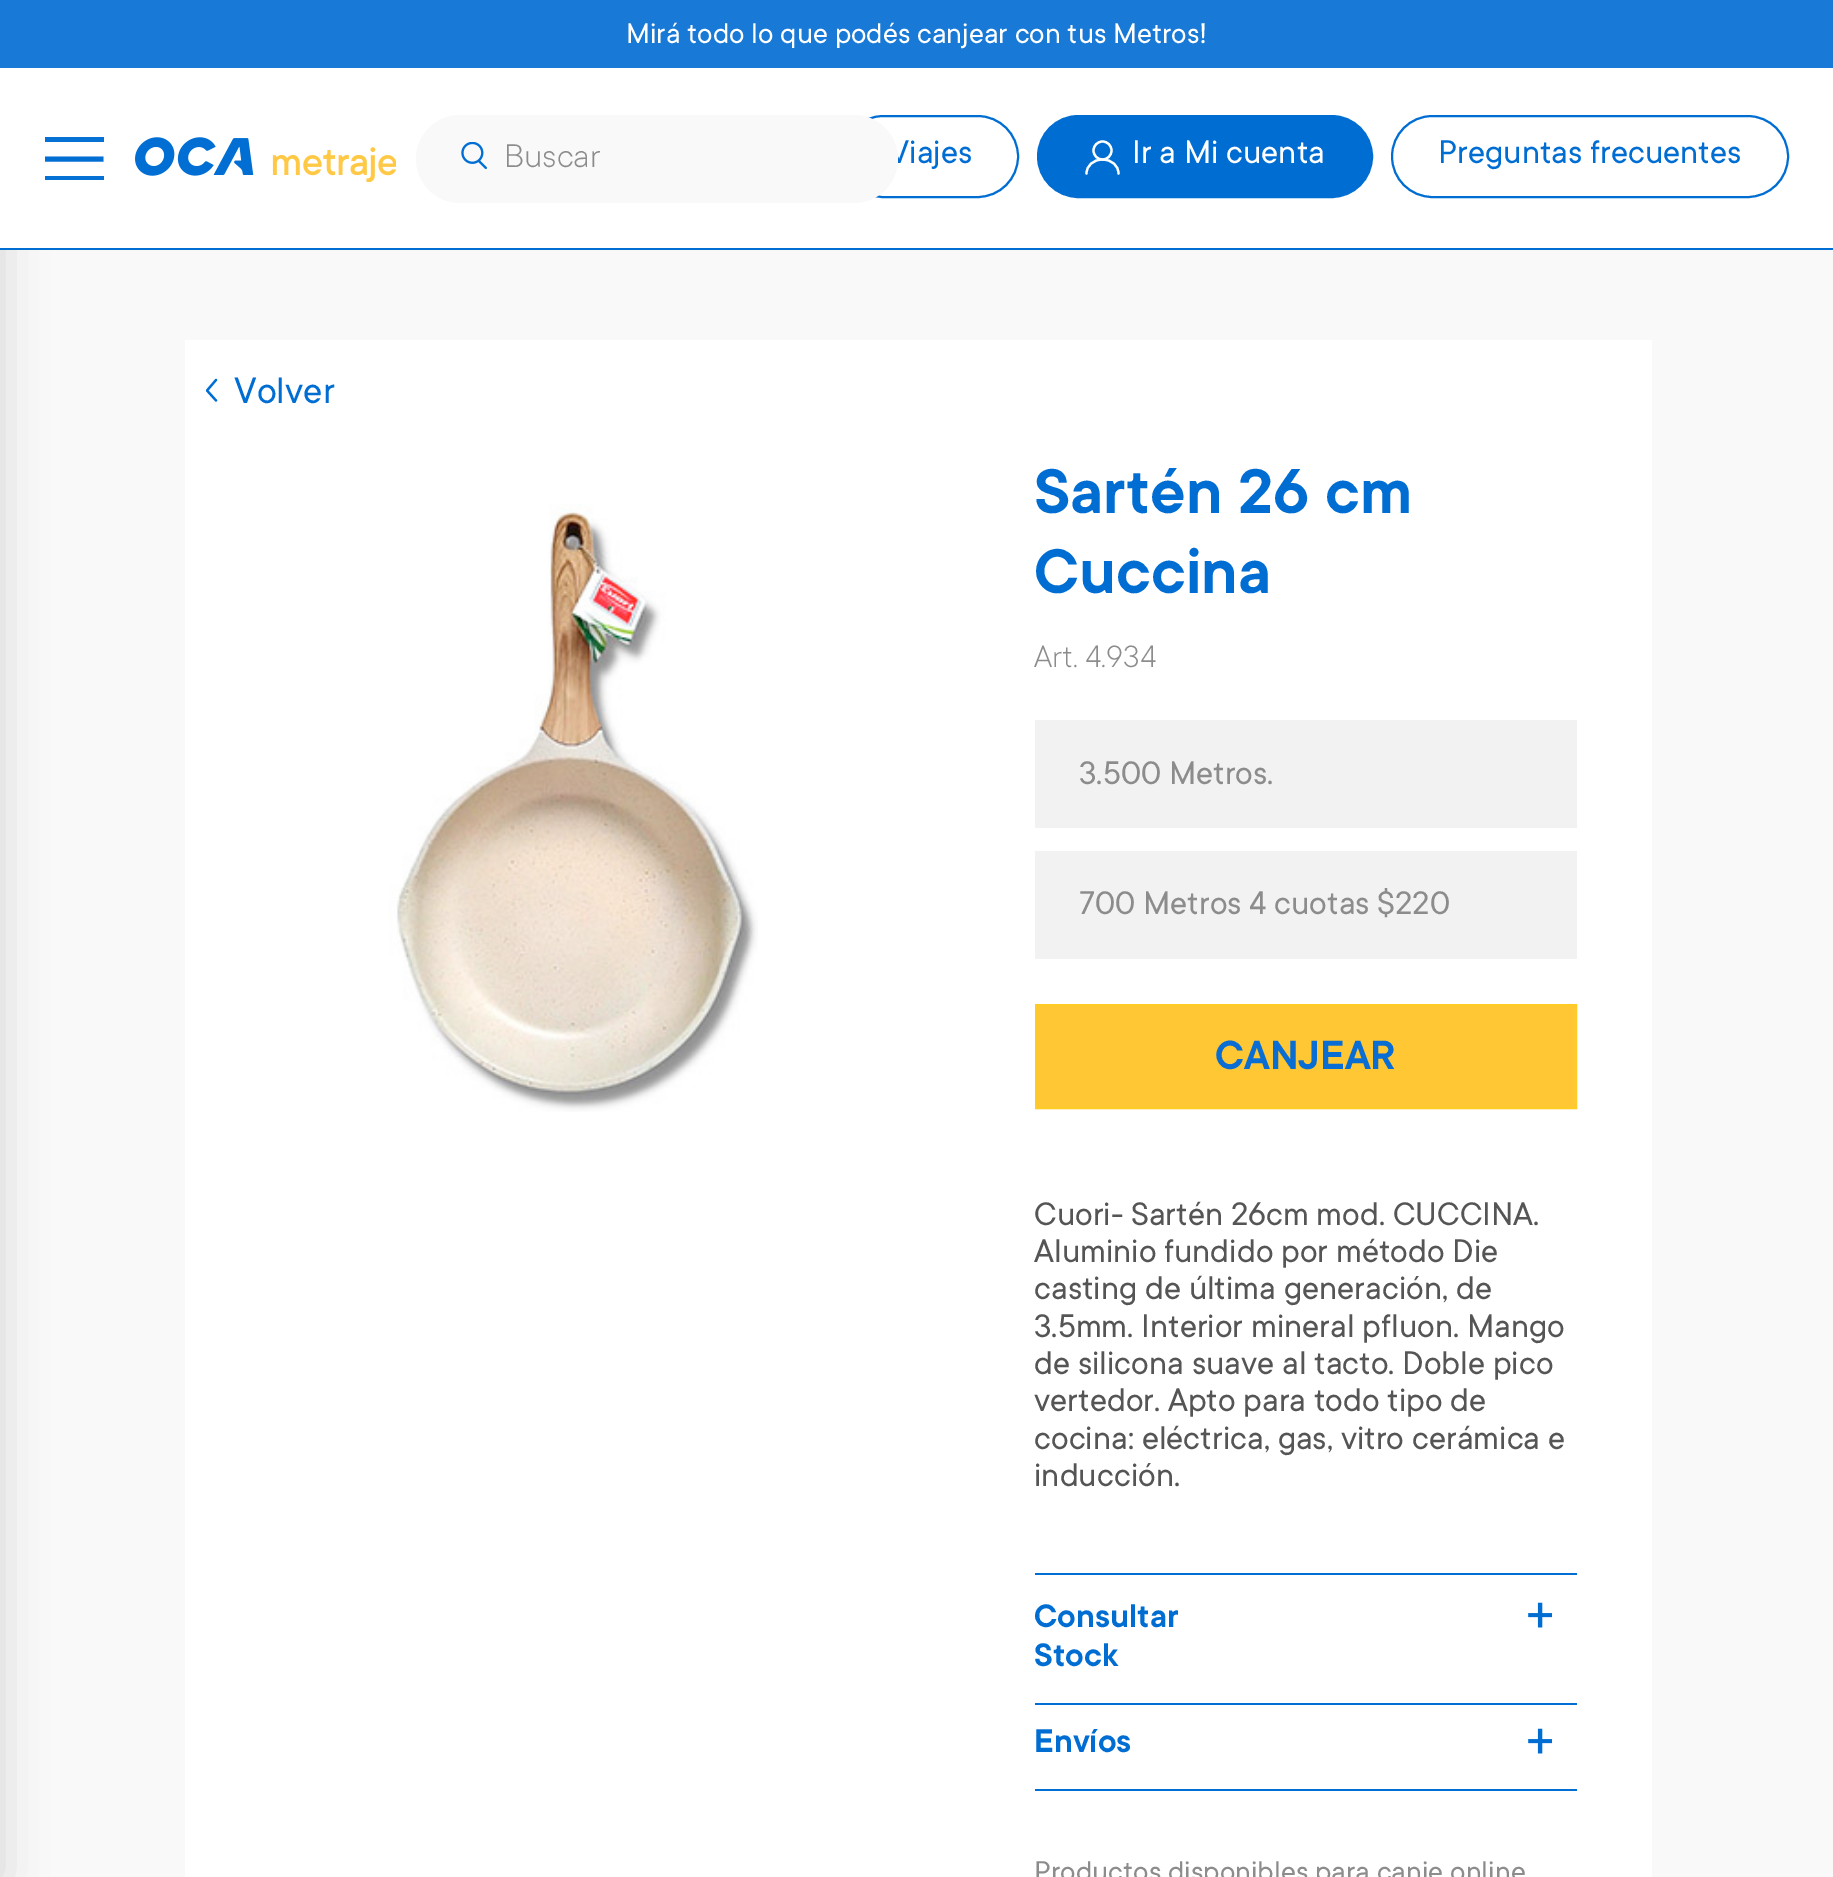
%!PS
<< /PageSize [1833 1877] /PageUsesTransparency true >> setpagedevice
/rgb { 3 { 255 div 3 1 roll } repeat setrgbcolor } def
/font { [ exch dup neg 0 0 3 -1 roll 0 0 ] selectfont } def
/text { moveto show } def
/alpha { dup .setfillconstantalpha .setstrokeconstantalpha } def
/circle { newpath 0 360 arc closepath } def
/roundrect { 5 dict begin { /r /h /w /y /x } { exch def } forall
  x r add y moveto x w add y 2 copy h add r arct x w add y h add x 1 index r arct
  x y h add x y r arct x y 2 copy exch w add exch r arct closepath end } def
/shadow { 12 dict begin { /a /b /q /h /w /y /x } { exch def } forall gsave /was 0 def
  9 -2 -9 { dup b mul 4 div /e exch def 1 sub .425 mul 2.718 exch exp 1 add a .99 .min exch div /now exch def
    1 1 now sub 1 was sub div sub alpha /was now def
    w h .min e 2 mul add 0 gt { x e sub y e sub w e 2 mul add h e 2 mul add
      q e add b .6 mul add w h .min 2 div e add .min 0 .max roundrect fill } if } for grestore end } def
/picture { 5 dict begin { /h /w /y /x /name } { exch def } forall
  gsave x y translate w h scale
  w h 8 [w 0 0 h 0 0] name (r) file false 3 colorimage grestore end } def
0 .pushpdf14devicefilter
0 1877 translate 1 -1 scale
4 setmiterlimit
249 249 249 rgb
0 0 1833 1877 rectfill
0 0 0 rgb
-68 158 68 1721 0 22.5 0.15 shadow
255 255 255 rgb
0 68 1833 180 rectfill
0 109 210 rgb
0 248 1833 2 rectfill
24 122 214 rgb
0 0 1833 68 rectfill
6 113 212 rgb
45 137 59 5 rectfill
1 110 211 rgb
4.9 setlinewidth
45 159 moveto 58.5 0 rlineto stroke
6 113 212 rgb
45 176 59 4 rectfill
(img_01.rgb) 135 137 261 45 picture
0 109 210 rgb
2 setlinewidth
843 116 175 81 40.5 roundrect stroke
1038 116 334 81 40.5 roundrect gsave fill grestore
stroke
255 255 255 rgb
2.2 setlinewidth
1102.5 150.5 9 circle stroke
1 setlinecap
1 setlinejoin
1086.5 173.5 moveto 0 -8 7 -14 16 -14 rcurveto 9 0 16 6 16 14 rcurveto stroke
0 109 210 rgb
2 setlinewidth
0 setlinecap
0 setlinejoin
1392 116 396 81 40.5 roundrect stroke
255 255 255 rgb
185 340 1467 1537 rectfill
0 109 210 rgb
2.2 setlinewidth
1 setlinecap
1 setlinejoin
216 380 moveto -9 10.5 rlineto 9 10 rlineto stroke
(img_03.rgb) 389 504 369 608 picture
242 242 242 rgb
1035 720 542 108 rectfill
1035 851 542 108 rectfill
255 199 51 rgb
1036 1005 moveto 540 0 rlineto 0 103 rlineto -540 0 rlineto closepath gsave fill grestore
255 204 37 rgb
2 setlinewidth
0 setlinecap
0 setlinejoin
stroke
1 110 211 rgb
1035 1573 542 2 rectfill
1035 1703 542 2 rectfill
(img_04.rgb) 1528 1602 25 26 picture
1035 1789 542 2 rectfill
(img_04.rgb) 1528 1728 25 26 picture
/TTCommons-Regular 31.5 font
255 255 255 rgb
(Mirá todo lo que podés canjear con tus Metros!) 626 43 text
/TTCommons-Regular 36 font
0 109 210 rgb
(Viajes) 889 163 text
249 249 249 rgb
416 115 482 88 44 roundrect fill
/TTCommons-Light 36 font
140 140 141 rgb
(Buscar) 504 167 text
(img_02.rgb) 461 142 26 27 picture
/TTCommons-Regular 36 font
255 255 255 rgb
(Ir a Mi cuenta) 1132 163 text
0 109 210 rgb
(Preguntas frecuentes) 1438 163 text
/TTCommons-Regular 40.5 font
(Volver) 234 403 text
/TTCommons-SemiBold 69.75 font
(Sartén 26 cm) 1034 513 text
(Cuccina) 1034 593 text
/TTCommons-Light 34 font
140 140 141 rgb
(Art. 4.934) 1034 667 text
/TTCommons-Regular 36 font
(3.500 Metros.) 1079 784 text
(700 Metros 4 cuotas $220) 1079 914 text
/TTCommons-SemiBold 45 font
9 109 211 rgb
(CANJEAR) 1215 1069 text
/TTCommons-Regular 36 font
85 85 85 rgb
(Cuori- Sartén 26cm mod. CUCCINA.) 1034 1225 text
(Aluminio fundido por método Die) 1034 1262 text
(casting de última generación, de) 1034 1299 text
(3.5mm. Interior mineral pfluon. Mango) 1034 1337 text
(de silicona suave al tacto. Doble pico) 1034 1374 text
(vertedor. Apto para todo tipo de) 1034 1411 text
(cocina: eléctrica, gas, vitro cerámica e) 1034 1449 text
(inducción.) 1034 1486 text
/TTCommons-SemiBold 36 font
0 109 210 rgb
(Consultar) 1034 1627 text
(Stock) 1034 1666 text
(Envíos) 1034 1752 text
/TTCommons-Regular 31.5 font
140 140 141 rgb
(Productos disponibles para canje online) 1034 1881 text
.poppdf14devicefilter showpage
